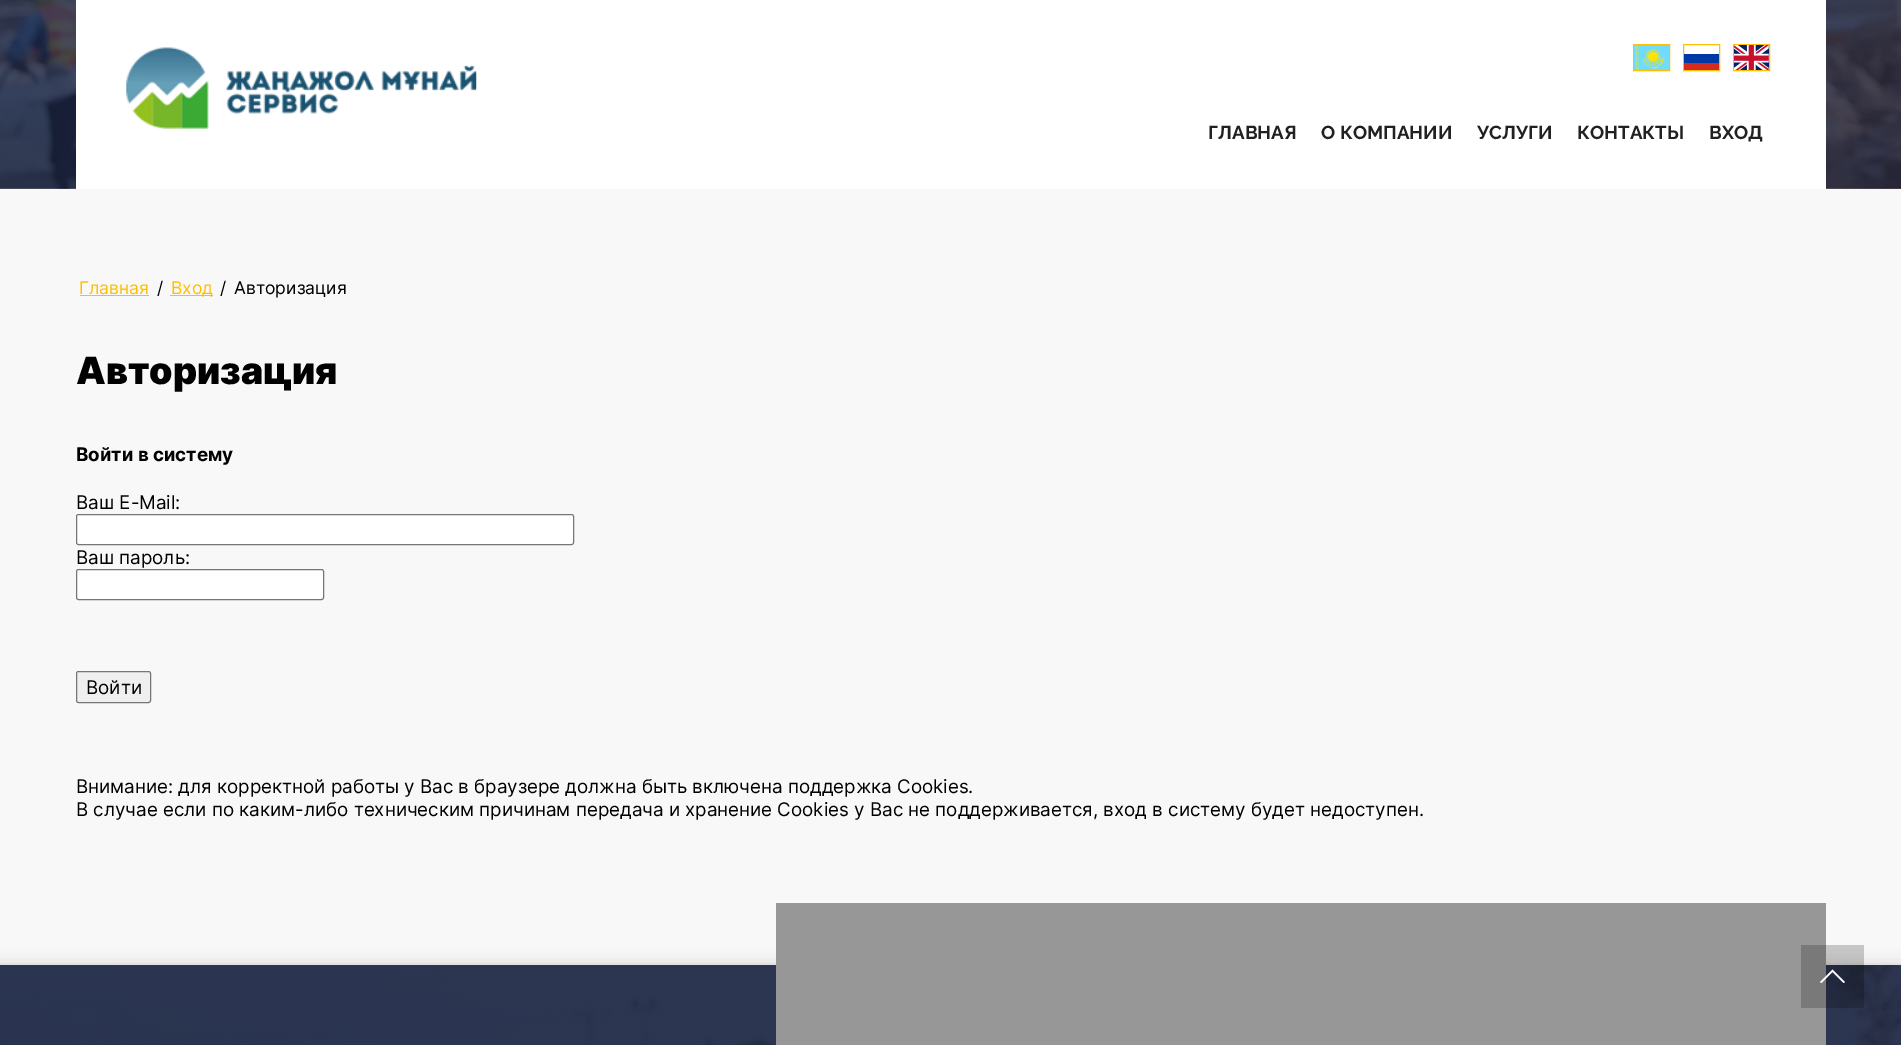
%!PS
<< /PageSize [1901 1045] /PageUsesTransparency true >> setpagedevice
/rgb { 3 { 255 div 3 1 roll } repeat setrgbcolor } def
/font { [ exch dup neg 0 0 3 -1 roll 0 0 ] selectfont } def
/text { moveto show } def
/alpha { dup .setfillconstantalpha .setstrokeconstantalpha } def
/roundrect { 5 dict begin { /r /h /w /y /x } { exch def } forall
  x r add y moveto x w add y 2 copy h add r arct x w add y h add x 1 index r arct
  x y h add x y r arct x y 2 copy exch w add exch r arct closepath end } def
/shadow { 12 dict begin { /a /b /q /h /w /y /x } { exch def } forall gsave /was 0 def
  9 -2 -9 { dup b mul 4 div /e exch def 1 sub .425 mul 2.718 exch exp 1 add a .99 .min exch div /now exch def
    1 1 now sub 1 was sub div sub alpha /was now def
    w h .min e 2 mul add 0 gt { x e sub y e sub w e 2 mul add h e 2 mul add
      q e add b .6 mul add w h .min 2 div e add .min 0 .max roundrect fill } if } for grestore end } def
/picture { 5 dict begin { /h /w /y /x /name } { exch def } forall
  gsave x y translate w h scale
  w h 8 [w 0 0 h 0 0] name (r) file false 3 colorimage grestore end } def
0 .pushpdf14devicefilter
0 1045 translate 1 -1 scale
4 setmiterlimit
255 255 255 rgb
0 0 1901 1045 rectfill
(img_01.rgb) 0 0 1901 189 picture
76 0 1750 189 rectfill
(img_02.rgb) 126 47 351 82 picture
255 191 0 rgb
1633.5 44.5 36 26 rectstroke
(img_03.rgb) 1634 45 35 25 picture
1683.5 44.5 36 26 rectstroke
0 57 166 rgb
1684 54 35 9 rectfill
213 43 30 rgb
1684 63 35 7 rectfill
255 191 0 rgb
1733.5 44.5 36 26 rectstroke
(img_04.rgb) 1734 45 35 25 picture
248 248 248 rgb
0 189 1901 776 rectfill
255 191 0 rgb
80 295 69 1 rectfill
170 295 43 1 rectfill
255 255 255 rgb
76.5 514.5 497 30 2 roundrect gsave fill grestore
118 118 118 rgb
stroke
255 255 255 rgb
76.5 569.5 247 30 2 roundrect gsave fill grestore
118 118 118 rgb
stroke
239 239 239 rgb
76.5 671.5 74 31 2 roundrect gsave fill grestore
118 118 118 rgb
stroke
0 0 0 rgb
-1 970 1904 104 0 9.5 0.3 shadow
(img_05.rgb) 0 965 1901 80 picture
151 151 151 rgb
776 903 1050 142 rectfill
0.2 alpha
0 0 0 rgb
1801 945 63 63 rectfill
1 alpha
255 255 255 rgb
1843.5 983 moveto -11 -11 rlineto -11 11 rlineto -1.5 -1 rlineto 12.5 -12.5 rlineto 12.5 12.5 rlineto closepath eofill
/Raleway-Thin 18.75 font
33 33 33 rgb
(ГЛАВНАЯ) 1208 139 text
(О КОМПАНИИ) 1321 139 text
(УСЛУГИ) 1477 139 text
(КОНТАКТЫ) 1577 139 text
(ВХОД) 1709 139 text
/Inter-Regular 17.5 font
255 191 0 rgb
(Главная) 79 294 text
0 0 0 rgb
(/) 157 294 text
255 191 0 rgb
(Вход) 171 294 text
0 0 0 rgb
(/) 220 294 text
(Авторизация) 234 294 text
/Inter-Black 37.5 font
(Авторизация) 76 384 text
/Inter-Bold 18.75 font
(Войти в систему) 76 461 text
/Inter-Regular 18.75 font
(Ваш E-Mail:) 76 509 text
(Ваш пароль:) 76 564 text
(Войти) 86 694 text
(Внимание: для корректной работы у Вас в браузере должна быть включена поддержка Cookies.) 76 793 text
(В случае если по каким-либо техническим причинам передача и хранение Cookies у Вас не поддерживается, вход в систему будет недоступен.) 76 816 text
.poppdf14devicefilter showpage
